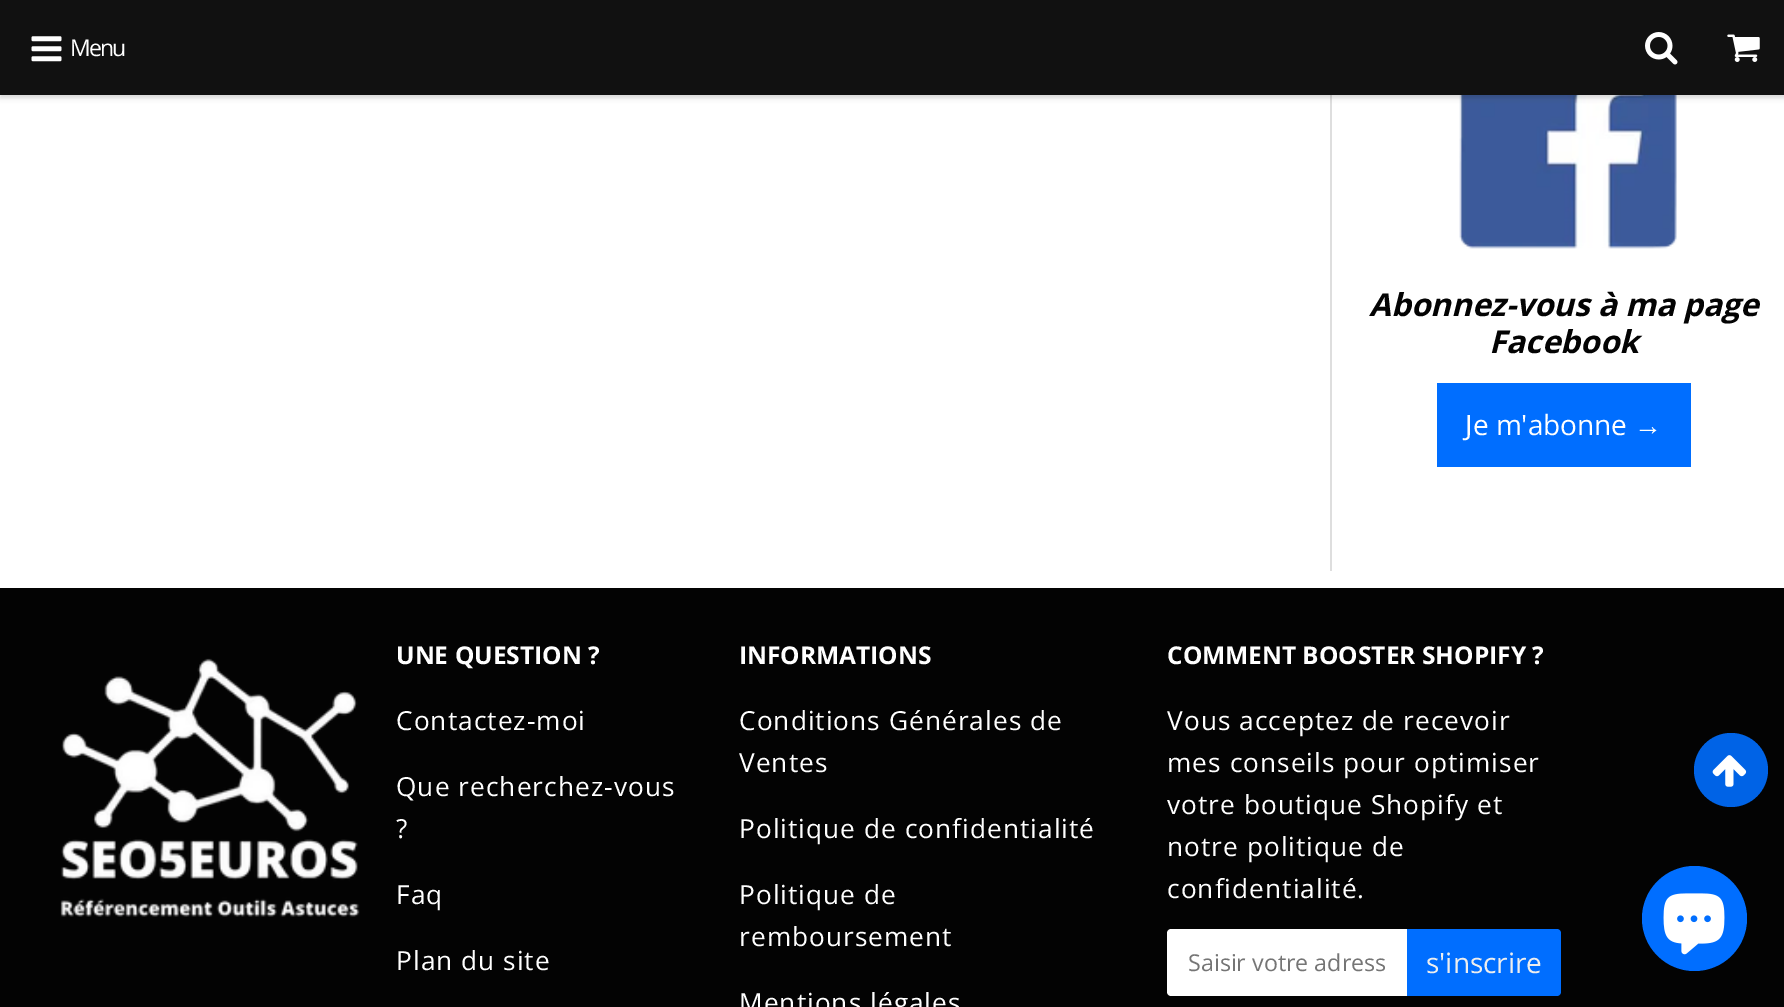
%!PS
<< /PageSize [1784 1007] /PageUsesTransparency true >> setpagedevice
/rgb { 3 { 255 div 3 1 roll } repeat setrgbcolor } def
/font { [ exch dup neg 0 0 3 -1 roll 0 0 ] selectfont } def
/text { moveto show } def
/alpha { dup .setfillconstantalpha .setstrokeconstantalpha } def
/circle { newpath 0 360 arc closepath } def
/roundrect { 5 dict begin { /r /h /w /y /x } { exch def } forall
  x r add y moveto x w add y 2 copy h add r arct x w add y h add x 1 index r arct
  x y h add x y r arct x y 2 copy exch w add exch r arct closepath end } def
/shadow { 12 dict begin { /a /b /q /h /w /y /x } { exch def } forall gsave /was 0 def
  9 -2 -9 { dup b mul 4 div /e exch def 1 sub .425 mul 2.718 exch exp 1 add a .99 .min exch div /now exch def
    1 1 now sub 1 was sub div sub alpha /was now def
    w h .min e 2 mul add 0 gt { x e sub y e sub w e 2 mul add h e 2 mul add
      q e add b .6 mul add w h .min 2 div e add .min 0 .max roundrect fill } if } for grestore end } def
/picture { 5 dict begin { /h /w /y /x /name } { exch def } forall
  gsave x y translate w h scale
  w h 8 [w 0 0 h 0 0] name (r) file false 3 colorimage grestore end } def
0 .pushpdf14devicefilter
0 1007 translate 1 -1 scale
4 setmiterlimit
255 255 255 rgb
0 0 1784 1007 rectfill
222 222 222 rgb
1330 95 2 476 rectfill
(img_04.rgb) 1459 95 218 154 picture
0 0 0 rgb
0 4 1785 94 0 3.5 0.05 shadow
17 17 17 rgb
0 0 1784 95 rectfill
gsave
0 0 moveto 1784 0 rlineto 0 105 rlineto -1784 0 rlineto closepath 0 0 moveto 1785 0 rlineto 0 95 rlineto -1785 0 rlineto closepath eoclip newpath
0 0 0 rgb
0 4 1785 94 0 2 0.1 shadow
grestore
(img_01.rgb) 31 36 31 26 picture
(img_02.rgb) 1645 32 33 33 picture
(img_03.rgb) 1727 34 33 28 picture
0 110 255 rgb
1437 383 254 84 rectfill
3 3 3 rgb
0 588 1784 419 rectfill
(img_05.rgb) 60 658 300 259 picture
255 255 255 rgb
1171 929 moveto 236 0 rlineto 0 67 rlineto -236 0 rlineto -2 0 -4 -2 -4 -4 rcurveto 0 -59 rlineto 0 -2 2 -4 4 -4 rcurveto closepath fill
0 110 255 rgb
1407 929 moveto 150 0 rlineto 2 0 4 2 4 4 rcurveto 0 59 rlineto 0 2 -2 4 -4 4 rcurveto -150 0 rlineto closepath fill
0 99 230 rgb
1731 770 37 circle fill
(img_06.rgb) 1712 755 35 32 picture
0 110 255 rgb
1694.5 918.5 52.5 circle fill
(img_07.rgb) 1663 893 62 62 picture
/OpenSans-Regular 23 font
255 255 255 rgb
70 56 moveto -2 0 (Menu) ashow
/OpenSans-BoldItalic 31.5 font
3 3 3 rgb
(Abonnez-vous à ma page) 1369 316 text
(Facebook) 1489 353 text
/OpenSans-Regular 28 font
255 255 255 rgb
(Je m'abonne) 1465 435 text
/LiberationSans-Regular 28 font
(→) 1634 435 text
/OpenSans-Bold 24.5 font
(UNE QUESTION ?) 396 664 text
/OpenSans-Regular 26.25 font
396 730 moveto 1.05 0 (Contactez-moi) ashow
396 796 moveto 1.05 0 (Que recherchez-vous) ashow
396 838 moveto 1.05 0 (?) ashow
396 904 moveto 1.05 0 (Faq) ashow
396 970 moveto 1.05 0 (Plan du site) ashow
/OpenSans-Bold 24.5 font
(INFORMATIONS) 739 664 text
/OpenSans-Regular 26.25 font
739 730 moveto 1.05 0 (Conditions Générales de) ashow
739 772 moveto 1.05 0 (Ventes) ashow
739 838 moveto 1.05 0 (Politique de confidentialité) ashow
739 904 moveto 1.05 0 (Politique de) ashow
739 946 moveto 1.05 0 (remboursement) ashow
739 1012 moveto 1.05 0 (Mentions légales) ashow
/OpenSans-Bold 24.5 font
(COMMENT BOOSTER SHOPIFY ?) 1167 664 text
/OpenSans-Regular 26.25 font
1167 730 moveto 1.05 0 (Vous acceptez de recevoir) ashow
1167 772 moveto 1.05 0 (mes conseils pour optimiser) ashow
1167 814 moveto 1.05 0 (votre boutique Shopify et) ashow
1167 856 moveto 1.05 0 (notre politique de) ashow
1167 898 moveto 1.05 0 (confidentialité.) ashow
gsave
1188 947 198 31 rectclip
/OpenSans-Regular 23.25 font
117 117 117 rgb
(Saisir votre adress) 1188 971 text
grestore
/OpenSans-Regular 28 font
238 238 238 rgb
(s'inscrire) 1426 973 text
.poppdf14devicefilter showpage
